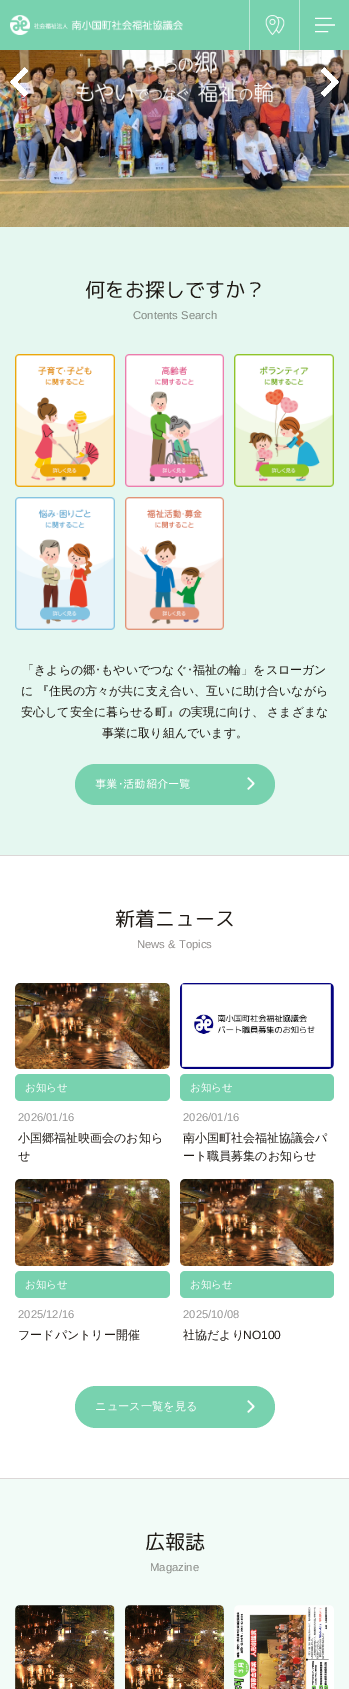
%!PS
<< /PageSize [349 1689] >> setpagedevice
/rgb { 3 { 255 div 3 1 roll } repeat setrgbcolor } def
/font { [ exch dup neg 0 0 3 -1 roll 0 0 ] selectfont } def
/text { moveto show } def
/roundrect { 5 dict begin { /r /h /w /y /x } { exch def } forall
  x r add y moveto x w add y 2 copy h add r arct x w add y h add x 1 index r arct
  x y h add x y r arct x y 2 copy exch w add exch r arct closepath end } def
/picture { 5 dict begin { /h /w /y /x /name } { exch def } forall
  gsave x y translate w h scale
  w h 8 [w 0 0 h 0 0] name (r) file false 3 colorimage grestore end } def
0 1689 translate 1 -1 scale
4 setmiterlimit
255 255 255 rgb
0 0 349 1689 rectfill
120 210 175 rgb
0 0 349 50 rectfill
(img_01.rgb) 10 15 173 20 picture
188 233 215 rgb
249 0 1 50 rectfill
(img_02.rgb) 265 15 20 20 picture
299 0 1 50 rectfill
(img_03.rgb) 315 17 20 16 picture
(img_04.rgb) 0 50 349 177 picture
(img_05.rgb) 10 67 18 30 picture
(img_06.rgb) 321 67 18 30 picture
(img_07.rgb) 76 51 198 52 picture
229 247 240 rgb
0 227 349 628 rectfill
(img_08.rgb) 15 354 100 133 picture
(img_09.rgb) 125 354 99 133 picture
(img_10.rgb) 234 354 100 133 picture
(img_11.rgb) 15 497 100 133 picture
(img_12.rgb) 125 497 99 133 picture
120 210 175 rgb
75 764 200 41 20.5 roundrect fill
(img_13.rgb) 247 777 8 13 picture
220 215 215 rgb
0 855 349 1 rectfill
(img_14.rgb) 15 983 155 86 picture
120 210 175 rgb
15 1074 155 27 5 roundrect fill
(img_15.rgb) 180 983 154 86 picture
180 1074 154 27 5 roundrect fill
(img_16.rgb) 15 1179 155 87 picture
15 1271 155 27 5 roundrect fill
(img_17.rgb) 180 1179 154 87 picture
180 1271 154 27 5 roundrect fill
75 1386 200 42 21 roundrect fill
(img_13.rgb) 247 1400 8 13 picture
242 251 247 rgb
0 1479 349 210 rectfill
220 215 215 rgb
0 1478 349 1 rectfill
(img_18.rgb) 15 1605 100 84 picture
(img_19.rgb) 125 1605 99 84 picture
(img_20.rgb) 234 1605 100 84 picture
/RoundedMplus1c-Regular 20 font
30 25 20 rgb
(何をお探しですか？) 85 297 text
/LiberationSans-Regular 11.25 font
130 136 130 rgb
(Contents Search) 133 319 text
/WenQuanYiZenHei-Medium 12 font
30 25 20 rgb
(「きよらの郷) 22 674 text
/IPAGothic-Regular 12 font
(･) 95 674 text
/WenQuanYiZenHei-Medium 12 font
(もやいでつなぐ) 101 674 text
/IPAGothic-Regular 12 font
(･) 187 674 text
/WenQuanYiZenHei-Medium 12 font
(福祉の輪」をスローガン) 193 674 text
(に 『住民の方々が共に支え合い、互いに助け合いながら) 21 695 text
(安心して安全に暮らせる町』の実現に向け、 さまざまな) 21 716 text
(事業に取り組んでいます。) 102 737 text
/IPAGothic-Regular 11.25 font
255 255 255 rgb
(事業･活動紹介一覧) 95 788 text
/RoundedMplus1c-Regular 20 font
30 25 20 rgb
(新着ニュース) 115 926 text
/LiberationSans-Regular 11.25 font
143 140 138 rgb
(News & Topics) 137 948 text
/WenQuanYiZenHei-Medium 10.5 font
255 255 255 rgb
(お知らせ) 25 1091 text
/LiberationSans-Regular 11.25 font
150 150 150 rgb
(2026/01/16) 18 1121 text
/WenQuanYiZenHei-Medium 12 font
30 25 20 rgb
(小国郷福祉映画会のお知ら) 18 1142 text
(せ) 18 1160 text
/WenQuanYiZenHei-Medium 10.5 font
255 255 255 rgb
(お知らせ) 190 1091 text
/LiberationSans-Regular 11.25 font
150 150 150 rgb
(2026/01/16) 183 1121 text
/WenQuanYiZenHei-Medium 12 font
30 25 20 rgb
(南小国町社会福祉協議会パ) 183 1142 text
(ート職員募集のお知らせ) 183 1160 text
/WenQuanYiZenHei-Medium 10.5 font
255 255 255 rgb
(お知らせ) 25 1288 text
/LiberationSans-Regular 11.25 font
150 150 150 rgb
(2025/12/16) 18 1318 text
/WenQuanYiZenHei-Medium 12 font
30 25 20 rgb
(フードパントリー開催) 18 1339 text
/WenQuanYiZenHei-Medium 10.5 font
255 255 255 rgb
(お知らせ) 190 1288 text
/LiberationSans-Regular 11.25 font
150 150 150 rgb
(2025/10/08) 183 1318 text
/WenQuanYiZenHei-Medium 12 font
30 25 20 rgb
(社協だより) 183 1339 text
/LiberationSans-Regular 12 font
(NO100) 243 1339 text
/WenQuanYiZenHei-Medium 11.25 font
255 255 255 rgb
(ニュース一覧を見る) 95 1410 text
/RoundedMplus1c-Regular 20 font
30 25 20 rgb
(広報誌) 145 1549 text
/LiberationSans-Regular 11.25 font
136 138 134 rgb
(Magazine) 150 1571 text
showpage
